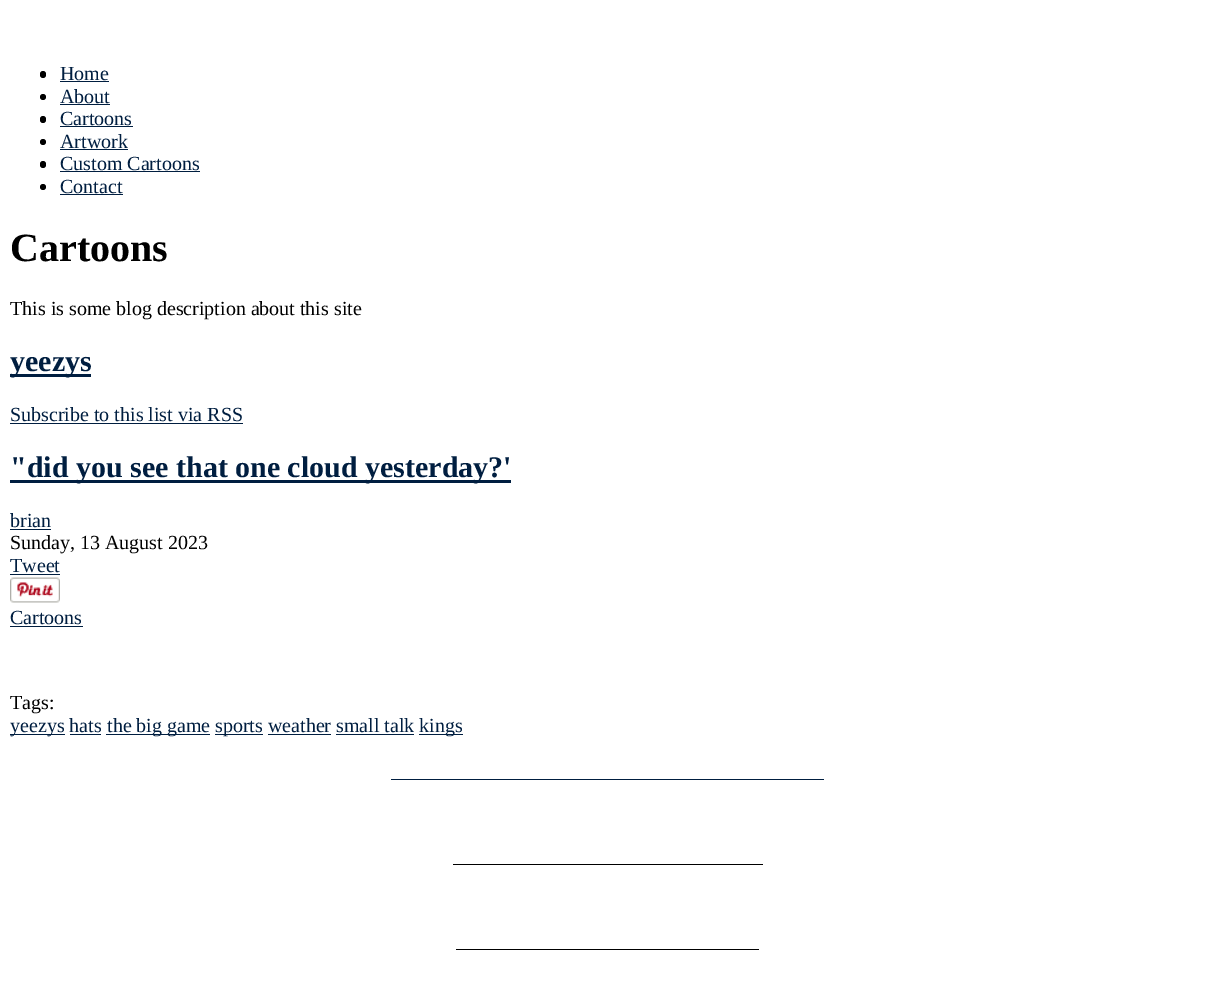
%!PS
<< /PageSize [1215 1001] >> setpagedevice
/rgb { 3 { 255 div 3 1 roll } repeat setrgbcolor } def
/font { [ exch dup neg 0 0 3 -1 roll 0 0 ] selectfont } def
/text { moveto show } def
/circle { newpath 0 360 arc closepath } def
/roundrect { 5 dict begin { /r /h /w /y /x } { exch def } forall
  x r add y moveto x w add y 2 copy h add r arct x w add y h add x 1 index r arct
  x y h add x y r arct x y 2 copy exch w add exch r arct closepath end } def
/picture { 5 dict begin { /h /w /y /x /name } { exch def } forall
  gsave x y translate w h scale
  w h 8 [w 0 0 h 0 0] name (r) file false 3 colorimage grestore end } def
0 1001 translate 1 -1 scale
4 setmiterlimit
255 255 255 rgb
0 0 1215 1001 rectfill
0 0 0 rgb
40 71 6 7 3 roundrect fill
0 30 64 rgb
60 81 49 1 rectfill
0 0 0 rgb
43 97 3 circle fill
0 30 64 rgb
60 104 50 1 rectfill
0 0 0 rgb
40 116 6 7 3 roundrect fill
0 30 64 rgb
60 126 73 1 rectfill
0 0 0 rgb
43 142 3 circle fill
0 30 64 rgb
60 149 68 1 rectfill
0 0 0 rgb
40 161 6 7 3 roundrect fill
0 30 64 rgb
60 171 140 1 rectfill
0 0 0 rgb
43 187 3 circle fill
0 30 64 rgb
60 194 63 1 rectfill
10 374 81 3 rectfill
10 423 233 1 rectfill
10 480 501 3 rectfill
10 529 41 1 rectfill
10 574 50 1 rectfill
(img_01.rgb) 10 577 50 26 picture
10 626 73 1 rectfill
10 734 55 1 rectfill
106 734 104 1 rectfill
215 734 48 1 rectfill
419 734 44 1 rectfill
70 734 31 1 rectfill
268 734 63 1 rectfill
336 734 78 1 rectfill
391 779 433 1 rectfill
0 0 0 rgb
453 864 310 1 rectfill
456 949 303 1 rectfill
/LiberationSerif-Regular 20 font
0 30 64 rgb
(Home) 60 80 text
(About) 60 103 text
(Cartoons) 60 125 text
(Artwork) 60 148 text
(Custom Cartoons) 60 170 text
(Contact) 60 193 text
/LiberationSerif-Bold 40 font
0 0 0 rgb
(Cartoons) 10 261 text
/LiberationSerif-Regular 20 font
(This is some blog description about this site) 10 315 text
/LiberationSerif-Bold 30 font
0 30 64 rgb
(yeezys) 10 371 text
/LiberationSerif-Regular 20 font
(Subscribe to this list via RSS) 10 421 text
/LiberationSerif-Bold 30 font
("did you see that one cloud yesterday?') 10 477 text
/LiberationSerif-Regular 20 font
(brian) 10 527 text
0 0 0 rgb
(Sunday, 13 August 2023) 10 549 text
0 30 64 rgb
(Tweet) 10 572 text
(Cartoons) 10 624 text
0 0 0 rgb
(Tags:) 10 709 text
0 30 64 rgb
(yeezys hats) 10 732 text
(the big game) 107 732 text
(sports weather small talk) 215 732 text
(kings) 419 732 text
showpage
